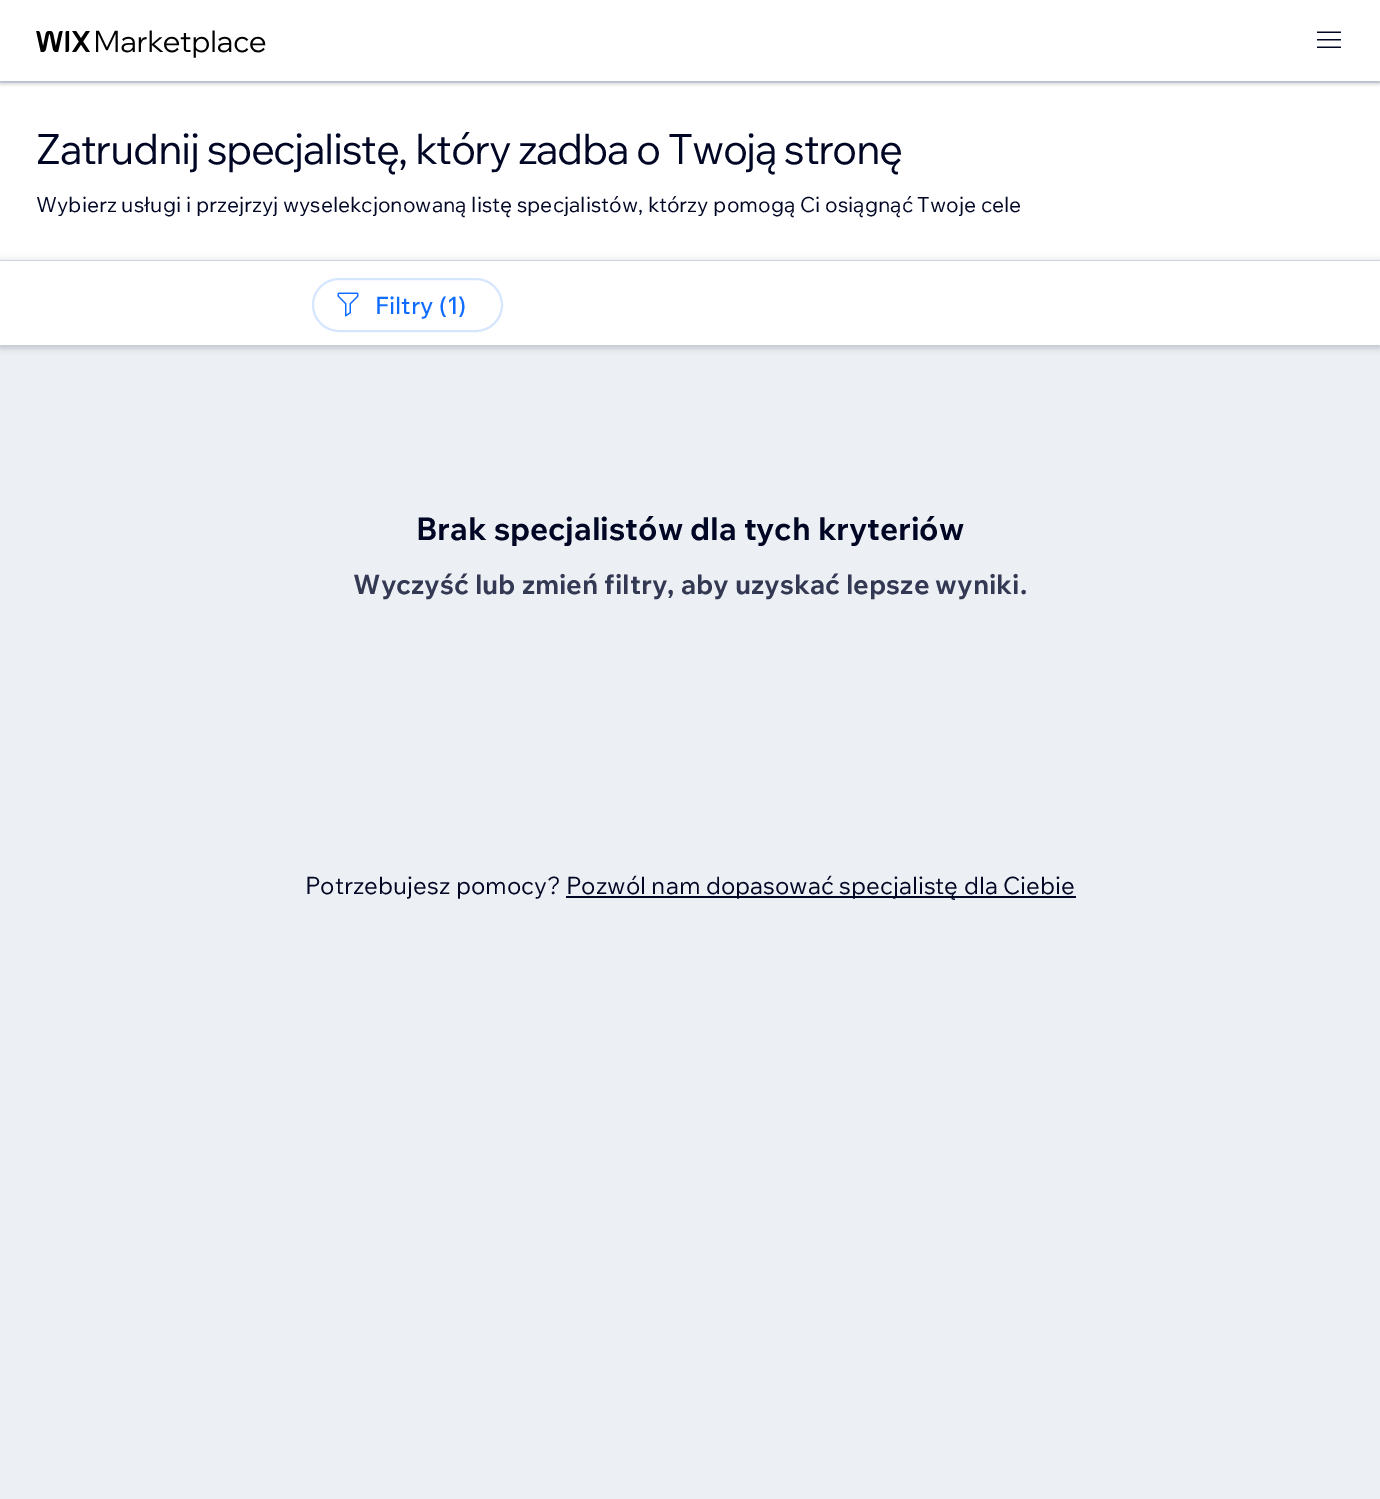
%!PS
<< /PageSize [1380 1499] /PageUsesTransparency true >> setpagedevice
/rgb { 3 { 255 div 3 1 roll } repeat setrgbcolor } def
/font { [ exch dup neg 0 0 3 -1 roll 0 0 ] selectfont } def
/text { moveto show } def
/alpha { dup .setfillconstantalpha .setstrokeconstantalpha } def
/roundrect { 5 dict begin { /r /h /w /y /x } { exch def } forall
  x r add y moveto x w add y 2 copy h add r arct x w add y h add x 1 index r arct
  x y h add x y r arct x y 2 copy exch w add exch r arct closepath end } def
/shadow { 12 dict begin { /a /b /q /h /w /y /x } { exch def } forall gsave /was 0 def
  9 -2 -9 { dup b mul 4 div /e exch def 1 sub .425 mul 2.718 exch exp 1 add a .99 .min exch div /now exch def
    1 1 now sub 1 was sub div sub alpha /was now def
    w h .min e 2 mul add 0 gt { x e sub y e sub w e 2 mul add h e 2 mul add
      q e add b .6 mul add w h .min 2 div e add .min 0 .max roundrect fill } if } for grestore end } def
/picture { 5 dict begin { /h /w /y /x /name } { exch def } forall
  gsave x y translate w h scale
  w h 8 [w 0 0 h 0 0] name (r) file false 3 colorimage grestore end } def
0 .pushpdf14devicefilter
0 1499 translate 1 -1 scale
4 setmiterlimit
236 239 243 rgb
0 0 1380 1499 rectfill
255 255 255 rgb
0 0 1380 81 rectfill
0 83 1380 177 rectfill
223 229 235 rgb
0 81 1380 2 rectfill
gsave
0 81 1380 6 rectclip
0 6 36 rgb
0 3 1380 81 0 3 0.12 shadow
grestore
gsave
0 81 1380 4 rectclip
0 6 36 rgb
0 0 1380 81 0 4.5 0.12 shadow
grestore
(img_01.rgb) 36 30 230 28 picture
(img_02.rgb) 1317 31 24 17 picture
0 260 1380 1 rectfill
0 6 36 rgb
0 264 1380 84 0 3 0.12 shadow
0 261 1380 84 0 4.5 0.12 shadow
255 255 255 rgb
0 261 1380 84 rectfill
214 230 254 rgb
2 setlinewidth
313 279 189 52 26 roundrect stroke
(img_03.rgb) 337 292 22 25 picture
0 6 36 rgb
566 896 510 2 rectfill
/WixMadeforText-Regular 42 font
36 164 moveto -1.5 0 (Zatrudnij specjalistę, który zadba o Twoją stronę) ashow
/WixMadeforText-Regular 21 font
(Wybierz usługi i przejrzyj wyselekcjonowaną listę specjalistów, którzy pomogą Ci osiągnąć Twoje cele) 36 212 text
/WixMadeforText-Medium 24 font
17 109 255 rgb
(Filtry \(1\)) 375 314 text
/WixMadeforText-Bold 31.5 font
0 6 36 rgb
(Brak specjalistów dla tych kryteriów) 416 540 text
/WixMadeforText-Bold 27 font
51 56 83 rgb
(Wyczyść lub zmień filtry, aby uzyskać lepsze wyniki.) 353 594 text
/WixMadeforText-Regular 24 font
0 6 36 rgb
(Potrzebujesz pomocy?) 305 894 text
(Pozwól nam dopasować specjalistę dla Ciebie) 566 894 text
.poppdf14devicefilter showpage
